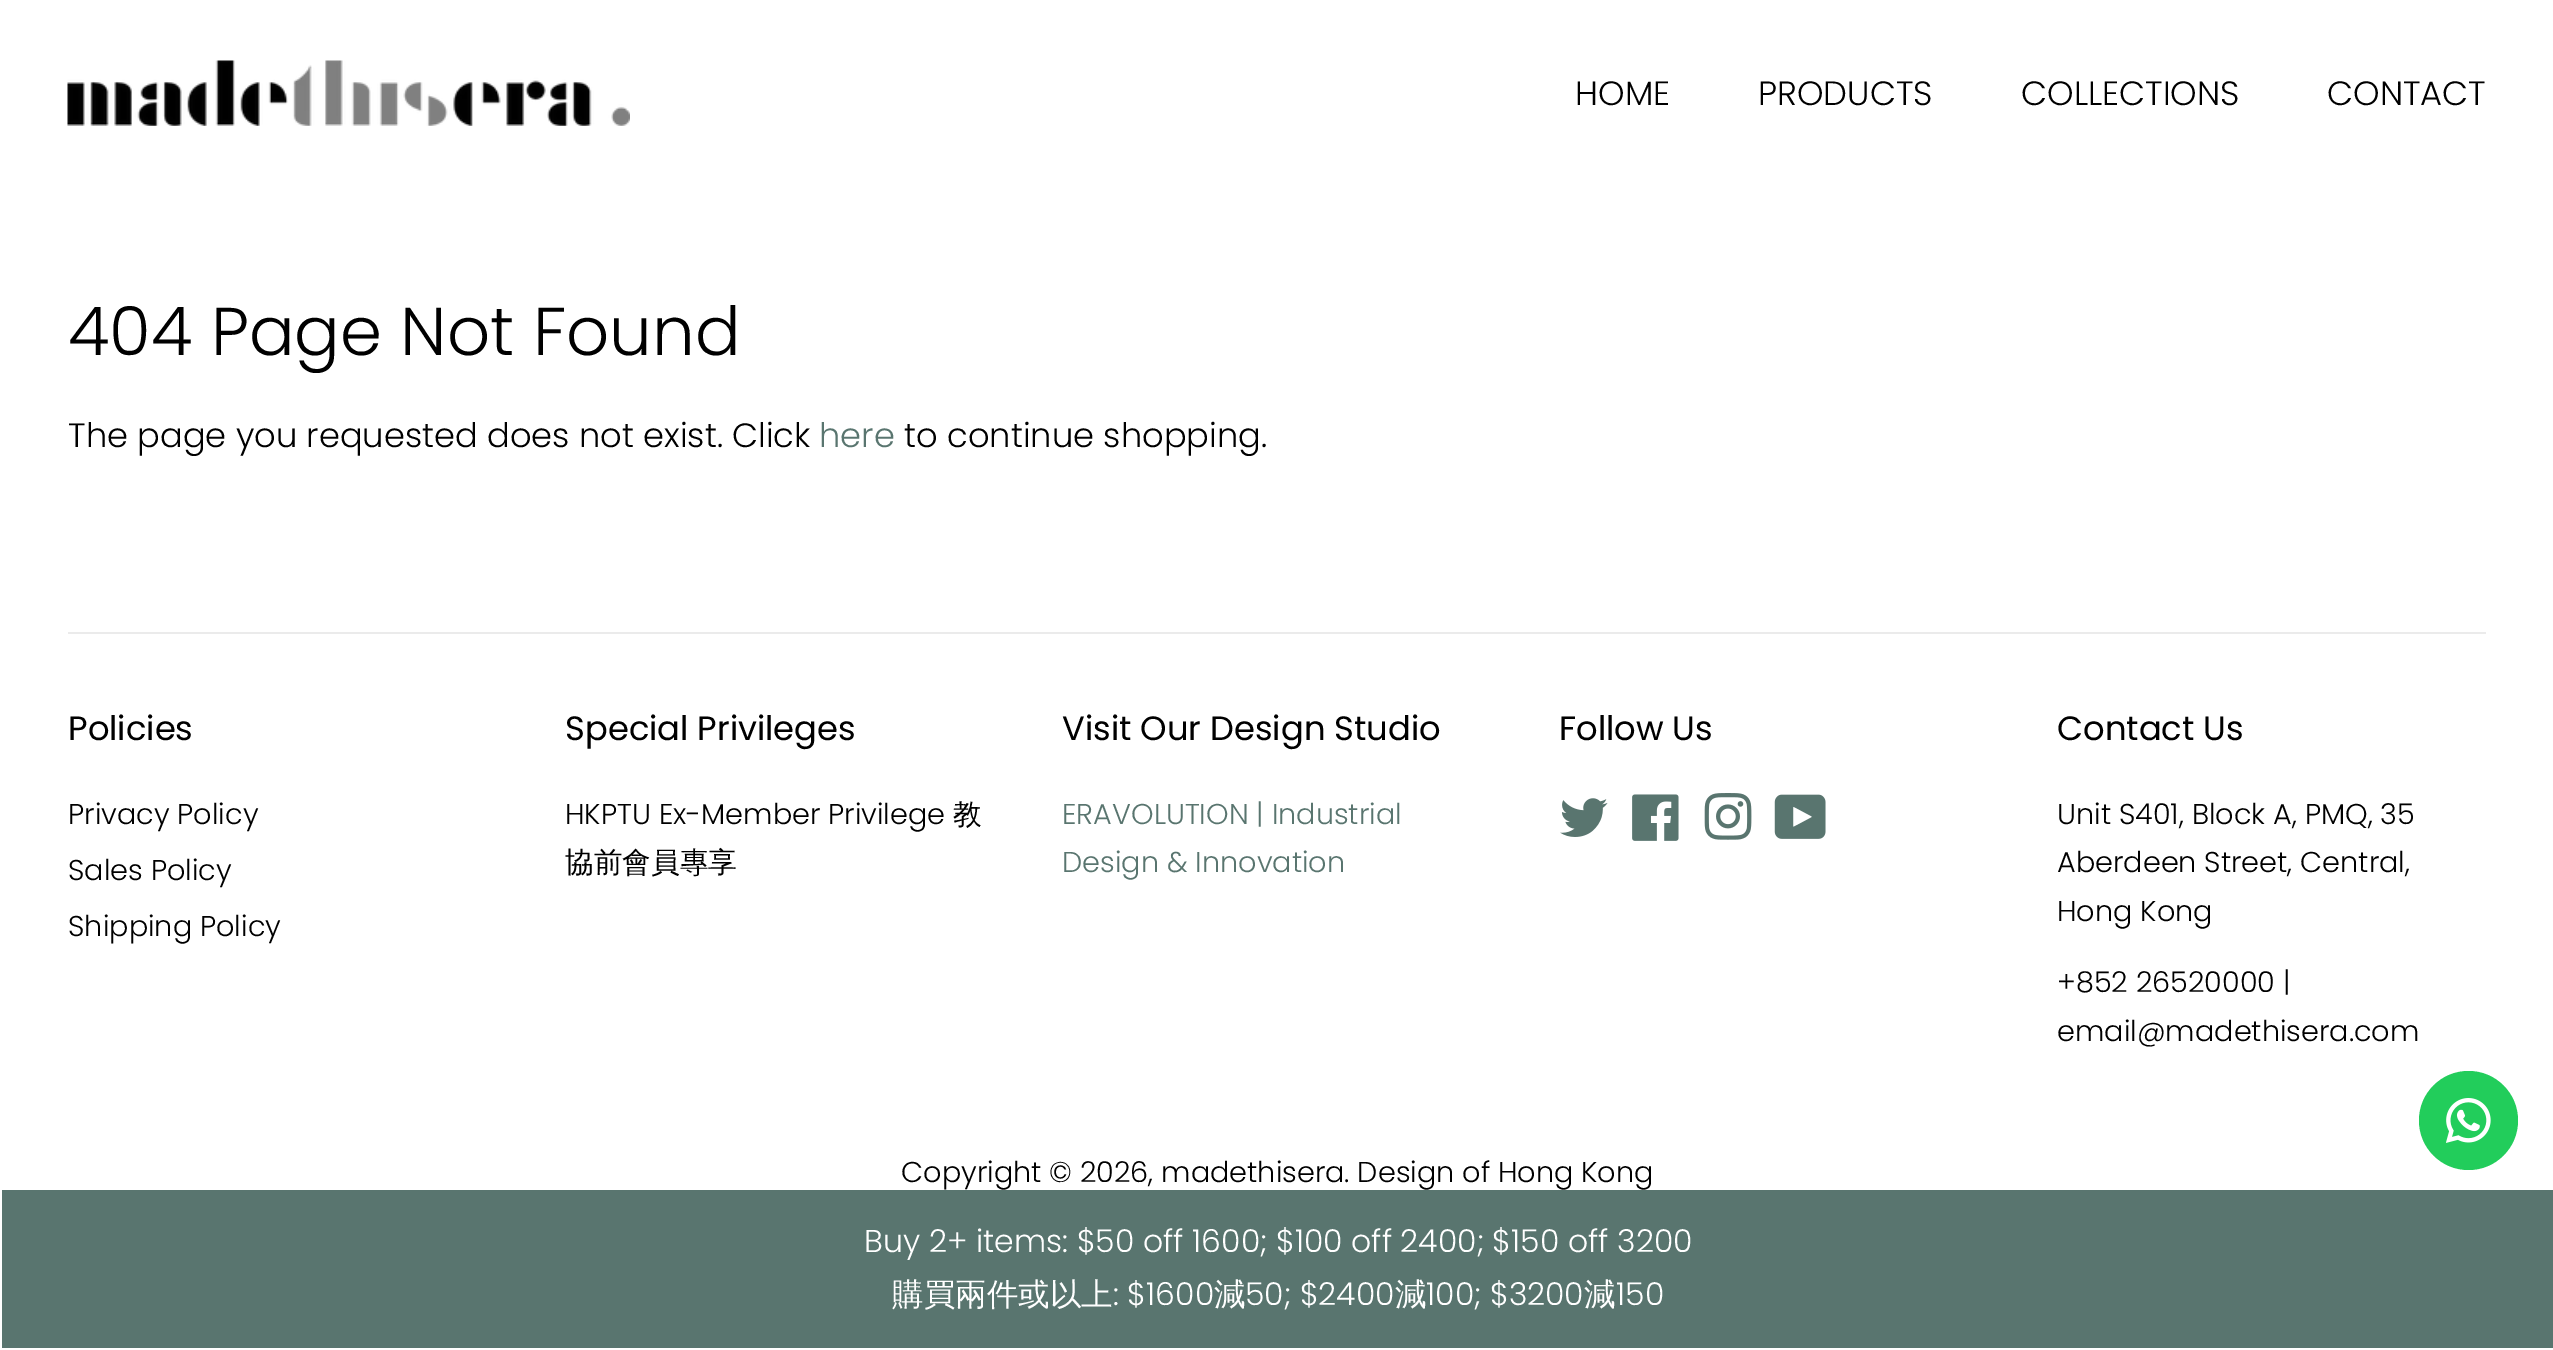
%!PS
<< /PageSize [2553 1350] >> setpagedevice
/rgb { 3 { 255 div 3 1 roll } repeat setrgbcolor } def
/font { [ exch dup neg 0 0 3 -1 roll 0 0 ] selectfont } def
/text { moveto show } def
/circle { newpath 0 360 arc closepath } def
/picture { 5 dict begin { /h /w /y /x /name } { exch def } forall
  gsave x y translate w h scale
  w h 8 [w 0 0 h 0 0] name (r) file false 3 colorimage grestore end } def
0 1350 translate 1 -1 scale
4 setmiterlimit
255 255 255 rgb
0 0 2553 1350 rectfill
(img_01.rgb) 67 60 563 66 picture
235 235 235 rgb
68 632 2418 2 rectfill
(img_02.rgb) 1560 798 48 39 picture
(img_03.rgb) 1632 794 47 47 picture
(img_04.rgb) 1704 793 48 47 picture
(img_05.rgb) 1774 794 52 45 picture
34 205 91 rgb
2468.5 1120.5 49.5 circle fill
(img_06.rgb) 2446 1098 45 45 picture
89 117 111 rgb
2 1190 2551 158 rectfill
/Poppins-Light 33.75 font
0 0 0 rgb
(HOME) 1575 105 text
(PRODUCTS) 1758 105 text
(COLLECTIONS) 2021 105 text
(CONTACT) 2327 105 text
/Poppins-Light 67.5 font
(404 Page Not Found) 68 355 text
/Poppins-Light 33.75 font
(The page you requested does not exist. Click) 68 447 text
89 117 111 rgb
(here) 819 447 text
0 0 0 rgb
(to continue shopping.) 904 447 text
/Poppins-Regular 33.75 font
(Policies) 68 740 text
/Poppins-Light 28.7 font
(Privacy Policy) 68 824 text
(Sales Policy) 68 880 text
(Shipping Policy) 68 936 text
/Poppins-Regular 33.75 font
(Special Privileges) 565 740 text
/Poppins-Light 28.7 font
(HKPTU Ex-Member Privilege) 565 824 text
/WenQuanYiZenHei-Medium 28.7 font
(教) 953 824 text
(協前會員專享) 565 872 text
/Poppins-Regular 33.75 font
(Visit Our Design Studio) 1062 740 text
/Poppins-Light 28.7 font
89 117 111 rgb
(ERAVOLUTION | Industrial) 1062 824 text
(Design & Innovation) 1062 872 text
/Poppins-Regular 33.75 font
0 0 0 rgb
(Follow Us) 1559 740 text
(Contact Us) 2057 740 text
/Poppins-Light 28.7 font
(Unit S401, Block A, PMQ, 35) 2057 824 text
(Aberdeen Street, Central,) 2057 872 text
(Hong Kong) 2057 921 text
(+852 26520000 |) 2057 992 text
(email@madethisera.com) 2057 1041 text
(Copyright © 2026, madethisera. Design of Hong Kong) 901 1182 text
/Poppins-Light 31.5 font
255 255 255 rgb
(Buy 2+ items: $50 off 1600; $100 off 2400; $150 off 3200) 864 1252 text
/WenQuanYiZenHei-Medium 31.5 font
(購買兩件或以上) 892 1305 text
/Poppins-Light 31.5 font
(: $1600) 1113 1305 text
/WenQuanYiZenHei-Medium 31.5 font
(減) 1214 1305 text
/Poppins-Light 31.5 font
(50; $2400) 1245 1305 text
/WenQuanYiZenHei-Medium 31.5 font
(減) 1395 1305 text
/Poppins-Light 31.5 font
(100; $3200) 1426 1305 text
/WenQuanYiZenHei-Medium 31.5 font
(減) 1584 1305 text
/Poppins-Light 31.5 font
(150) 1616 1305 text
showpage
